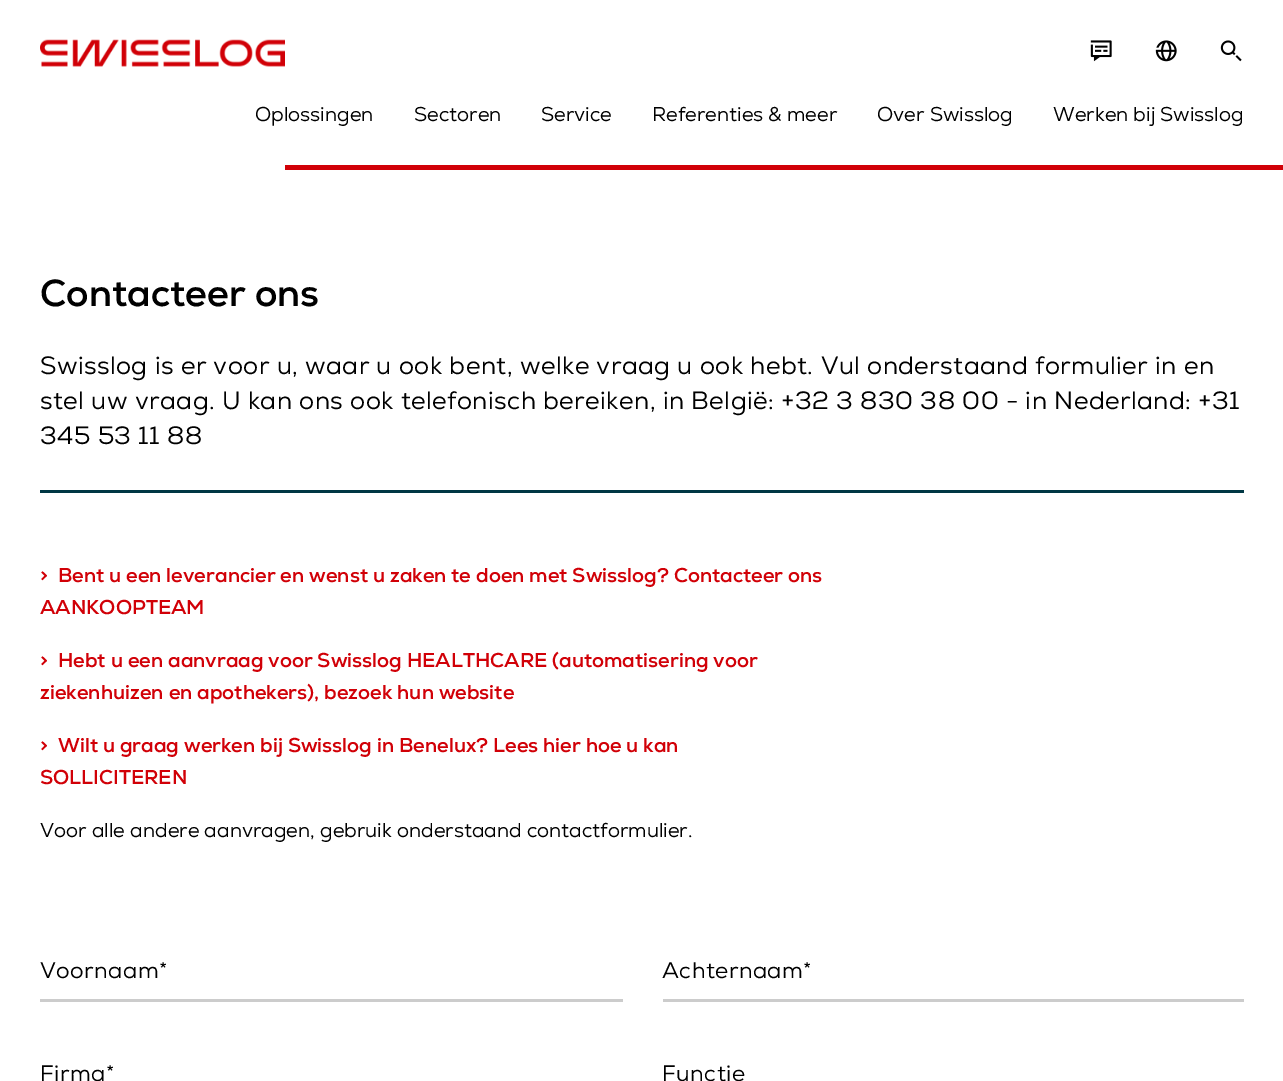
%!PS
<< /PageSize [1283 1081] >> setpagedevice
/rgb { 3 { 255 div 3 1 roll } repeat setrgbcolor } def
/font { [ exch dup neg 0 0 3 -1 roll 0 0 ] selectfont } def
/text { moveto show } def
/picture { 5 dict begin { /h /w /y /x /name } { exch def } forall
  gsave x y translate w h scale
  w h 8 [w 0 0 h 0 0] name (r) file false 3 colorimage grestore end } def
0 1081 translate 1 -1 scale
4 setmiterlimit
255 255 255 rgb
0 0 1283 1081 rectfill
(img_01.rgb) 40 39 245 28 picture
(img_02.rgb) 1090 40 22 22 picture
(img_03.rgb) 1155 40 22 22 picture
(img_04.rgb) 1220 40 22 22 picture
209 0 7 rgb
285 165 998 5 rectfill
0 55 68 rgb
40 490 1204 3 rectfill
204 204 204 rgb
40 999 583 3 rectfill
663 999 581 3 rectfill
/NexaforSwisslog-Regular 20 font
0 0 0 rgb
(Oplossingen) 255 121 text
(Sectoren) 414 121 text
(Service) 541 121 text
(Referenties & meer) 652 121 text
(Over Swisslog) 877 121 text
(Werken bij Swisslog) 1053 121 text
/NexaforSwisslog-Bold 37.5 font
(Contacteer ons) 40 306 text
/NexaforSwisslog-Regular 25 font
40 374 moveto 0.45 0 (Swisslog is er voor u, waar u ook bent, welke vraag u ook hebt. Vul onderstaand formulier in en) ashow
40 409 moveto 0.45 0 (stel uw vraag. U kan ons ook telefonisch bereiken, in België: +32 3 830 38 00 - in Nederland: +31) ashow
40 444 moveto 0.45 0 (345 53 11 88) ashow
/NexaforSwisslog-Bold 20 font
209 0 7 rgb
(>  Bent u een leverancier en wenst u zaken te doen met Swisslog? Contacteer ons) 40 582 text
(AANKOOPTEAM) 40 614 text
(>  Hebt u een aanvraag voor Swisslog HEALTHCARE \(automatisering voor) 40 667 text
(ziekenhuizen en apothekers\), bezoek hun website) 40 699 text
(>  Wilt u graag werken bij Swisslog in Benelux? Lees hier hoe u kan) 40 752 text
(SOLLICITEREN) 40 784 text
/NexaforSwisslog-Regular 20 font
0 0 0 rgb
(Voor alle andere aanvragen, gebruik onderstaand contactformulier.) 40 837 text
/NexaforSwisslog-Regular 22.5 font
40 978 moveto 0.45 0 (Voornaam*) ashow
662 978 moveto 0.45 0 (Achternaam*) ashow
40 1081 moveto 0.45 0 (Firma*) ashow
662 1081 moveto 0.45 0 (Functie) ashow
showpage
